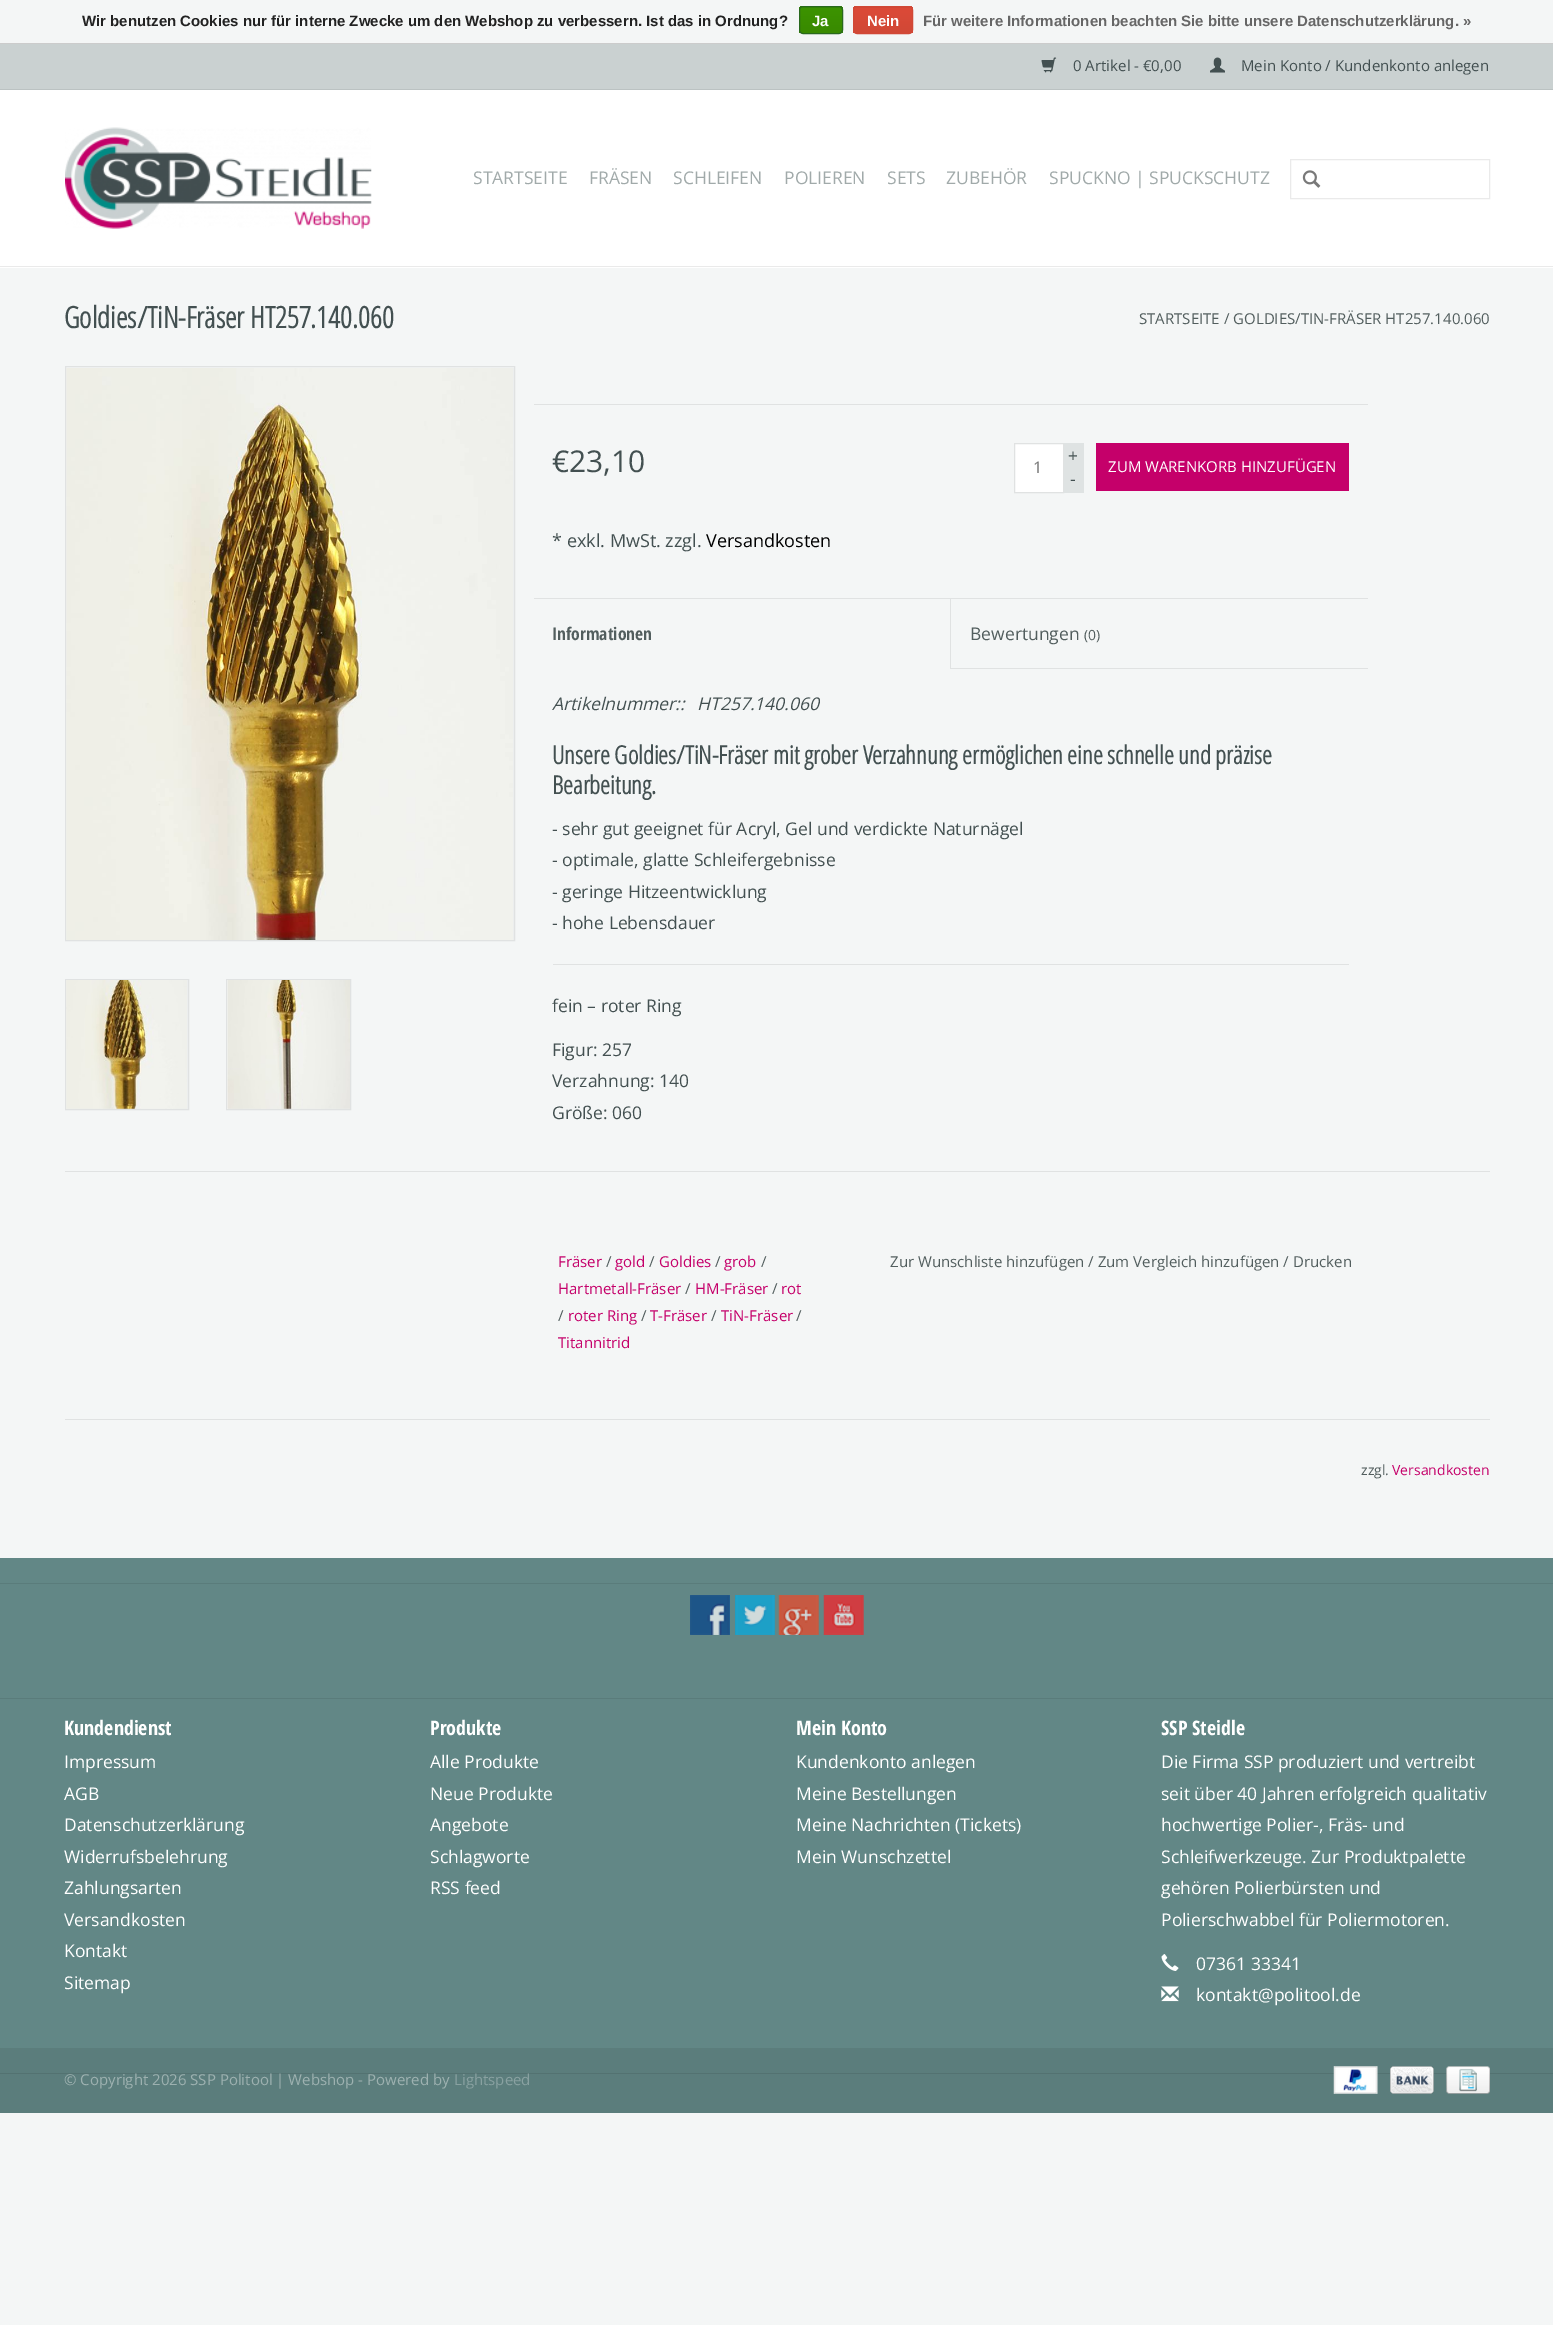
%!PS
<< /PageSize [1553 2325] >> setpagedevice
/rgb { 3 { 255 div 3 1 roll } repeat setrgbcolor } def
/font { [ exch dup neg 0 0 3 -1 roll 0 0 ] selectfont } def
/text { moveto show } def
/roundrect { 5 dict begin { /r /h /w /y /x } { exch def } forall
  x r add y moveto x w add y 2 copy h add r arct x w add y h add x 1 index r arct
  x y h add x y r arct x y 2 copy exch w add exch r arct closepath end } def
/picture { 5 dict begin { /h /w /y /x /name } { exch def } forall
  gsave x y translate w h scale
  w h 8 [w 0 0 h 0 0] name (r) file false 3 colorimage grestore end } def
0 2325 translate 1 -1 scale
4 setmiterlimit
244 246 246 rgb
0 0 1553 2325 rectfill
204 204 204 rgb
0 43 1553 1 rectfill
gsave
799 6 44 28 4 roundrect clip newpath
gsave 799 6 moveto 44 0 rlineto 0 2 rlineto -44 0 rlineto closepath clip newpath
<< /ShadingType 2 /ColorSpace /DeviceRGB /Coords [821 -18 821 7.5] /Extend [true true] /Function << /FunctionType 2 /Domain [0 1] /C0 [0.235 0.576 0] /C1 [0.224 0.541 0] /N 1 >> >> shfill grestore
gsave 799 8 moveto 44 0 rlineto 0 25 rlineto -44 0 rlineto closepath clip newpath
<< /ShadingType 2 /ColorSpace /DeviceRGB /Coords [821 7.5 821 33] /Extend [true true] /Function << /FunctionType 2 /Domain [0 1] /C0 [0.235 0.576 0] /C1 [0.224 0.541 0] /N 1 >> >> shfill grestore
grestore
41 105 29 rgb
799.5 6.5 43 27 3.5 roundrect stroke
gsave
853 6 60 28 4 roundrect clip newpath
gsave 853 6 moveto 60 0 rlineto 0 2 rlineto -60 0 rlineto closepath clip newpath
<< /ShadingType 2 /ColorSpace /DeviceRGB /Coords [883 -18 883 7.5] /Extend [true true] /Function << /FunctionType 2 /Domain [0 1] /C0 [0.863 0.29 0.22] /C1 [0.82 0.282 0.212] /N 1 >> >> shfill grestore
gsave 853 8 moveto 60 0 rlineto 0 25 rlineto -60 0 rlineto closepath clip newpath
<< /ShadingType 2 /ColorSpace /DeviceRGB /Coords [883 7.5 883 33] /Extend [true true] /Function << /FunctionType 2 /Domain [0 1] /C0 [0.863 0.29 0.22] /C1 [0.82 0.282 0.212] /N 1 >> >> shfill grestore
grestore
209 72 54 rgb
853.5 6.5 59 27 3.5 roundrect stroke
255 255 255 rgb
0 90 1553 178 rectfill
234 234 234 rgb
0 266 1553 1 rectfill
202 209 209 rgb
0 44 1553 45 rectfill
187 194 194 rgb
0 89 1553 1 rectfill
(img_01.rgb) 1041 57 16 16 picture
(img_02.rgb) 1210 57 15 16 picture
(img_03.rgb) 65 127 307 102 picture
234 234 234 rgb
1290.5 159.5 199 39 rectstroke
(img_04.rgb) 1302 170 19 18 picture
224 226 226 rgb
65.5 366.5 449 574 rectstroke
236 238 238 rgb
66 368 448 572 rectfill
(img_05.rgb) 66 368 447 572 picture
224 226 226 rgb
65.5 979.5 123 130 rectstroke
236 238 238 rgb
66 980 122 129 rectfill
(img_06.rgb) 66 980 121 129 picture
224 226 226 rgb
226.5 979.5 124 130 rectstroke
(img_07.rgb) 227 980 123 129 picture
534 404 834 1 rectfill
255 255 255 rgb
1014.5 443.5 moveto 49 0 rlineto 0 49 rlineto -49 0 rlineto closepath gsave fill grestore
224 226 226 rgb
stroke
223 227 227 rgb
1064 443 20 50 rectfill
197 0 106 rgb
1096 443 253 48 rectfill
224 226 226 rgb
534 598 834 1 rectfill
950 668 418 1 rectfill
950 599 1 70 rectfill
553 964 796 1 rectfill
65 1171 1425 1 rectfill
65 1419 1425 1 rectfill
98 135 134 rgb
0 1558 1553 490 rectfill
90 124 123 rgb
0 1583 1553 1 rectfill
(img_08.rgb) 690 1595 40 40 picture
(img_09.rgb) 735 1595 40 40 picture
(img_10.rgb) 778 1595 41 40 picture
(img_11.rgb) 823 1595 41 40 picture
0 1698 1553 1 rectfill
(img_12.rgb) 1161 1954 18 17 picture
(img_13.rgb) 1161 1986 18 16 picture
91 125 124 rgb
0 2048 1553 65 rectfill
83 114 113 rgb
0 2073 1553 1 rectfill
(img_14.rgb) 1333 2066 45 28 picture
(img_15.rgb) 1390 2066 44 28 picture
(img_16.rgb) 1446 2066 44 28 picture
/LiberationSans-Bold 15 font
34 34 34 rgb
(Wir benutzen Cookies nur für interne Zwecke um den Webshop zu verbessern. Ist das in Ordnung?) 82 26 text
255 255 255 rgb
(Ja) 812 26 text
(Nein) 867 26 text
102 102 102 rgb
(Für weitere Informationen beachten Sie bitte unsere Datenschutzerklärung. ») 923 26 text
/OpenSans-Regular 15 font
67 80 81 rgb
(0 Artikel - €0,00) 1073 71 text
(Mein Konto / Kundenkonto anlegen) 1241 71 text
/OpenSans-Regular 17.5 font
161 170 170 rgb
(STARTSEITE) 473 184 text
(FRÄSEN) 589 184 text
(SCHLEIFEN) 673 184 text
(POLIEREN) 784 184 text
(SETS) 887 184 text
(ZUBEHÖR) 946 184 text
(SPUCKNO | SPUCKSCHUTZ) 1049 184 text
/OpenSansCondensed-Bold 29.5 font
67 80 81 rgb
(Goldies/TiN-Fräser HT257.140.060) 64 328 text
/OpenSans-Regular 15 font
82 94 94 rgb
(STARTSEITE / GOLDIES/TIN-FRÄSER HT257.140.060) 1139 324 text
/OpenSans-Regular 30 font
67 80 81 rgb
(€23,10) 552 472 text
/OpenSans-Regular 18 font
(* exkl. MwSt. zzgl.) 552 547 text
0 0 0 rgb
(Versandkosten) 706 547 text
/OpenSans-Regular 16 font
119 119 119 rgb
(1) 1033 473 text
/OpenSans-Regular 17.5 font
67 80 81 rgb
(+) 1068 462 text
(-) 1070 485 text
/OpenSans-Regular 15 font
255 255 255 rgb
(ZUM WARENKORB HINZUFÜGEN) 1108 472 text
/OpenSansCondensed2-Bold 17.5 font
82 94 94 rgb
(Informationen) 552 640 text
/OpenSans-Regular 17.5 font
(Bewertungen) 970 640 text
/OpenSans-Regular 14 font
(\(0\)) 1084 640 text
/OpenSans-Italic 17.5 font
67 80 81 rgb
(Artikelnummer::) 552 710 text
(HT257.140.060) 697 710 text
/OpenSansCondensed-Bold 25.15 font
(Unsere Goldies/TiN-Fräser mit grober Verzahnung ermöglichen eine schnelle und präzise) 552 764 text
(Bearbeitung.) 552 794 text
/OpenSans-Regular 17.5 font
(- sehr gut geeignet für Acryl, Gel und verdickte Naturnägel) 552 835 text
(- optimale, glatte Schleifergebnisse) 552 866 text
(- geringe Hitzeentwicklung) 552 898 text
(- hohe Lebensdauer) 552 929 text
(fein – roter Ring) 552 1012 text
(Figur: 257) 552 1056 text
(Verzahnung: 140) 552 1087 text
(Größe: 060) 552 1119 text
/OpenSans-Regular 15 font
197 0 106 rgb
(Fräser) 558 1267 text
82 94 94 rgb
(/) 606 1267 text
197 0 106 rgb
(gold) 615 1267 text
82 94 94 rgb
(/) 649 1267 text
197 0 106 rgb
(Goldies) 659 1267 text
82 94 94 rgb
(/) 715 1267 text
197 0 106 rgb
(grob) 724 1267 text
82 94 94 rgb
(/) 761 1267 text
197 0 106 rgb
(Hartmetall-Fräser) 558 1294 text
82 94 94 rgb
(/) 685 1294 text
197 0 106 rgb
(HM-Fräser) 695 1294 text
82 94 94 rgb
(/) 772 1294 text
197 0 106 rgb
(rot) 781 1294 text
82 94 94 rgb
(/) 558 1321 text
197 0 106 rgb
(roter Ring) 568 1321 text
82 94 94 rgb
(/) 641 1321 text
197 0 106 rgb
(T-Fräser) 650 1321 text
82 94 94 rgb
(/) 711 1321 text
197 0 106 rgb
(TiN-Fräser) 721 1321 text
82 94 94 rgb
(/) 796 1321 text
197 0 106 rgb
(Titannitrid) 558 1348 text
82 94 94 rgb
(Zur Wunschliste hinzufügen / Zum Vergleich hinzufügen / Drucken) 890 1267 text
/OpenSans-Regular 14 font
(zzgl.) 1361 1475 text
197 0 106 rgb
(Versandkosten) 1392 1475 text
/OpenSansCondensed2-Bold 20 font
255 255 255 rgb
(Kundendienst) 64 1735 text
/OpenSans-Regular 17.5 font
(Impressum) 64 1768 text
(AGB) 64 1800 text
(Datenschutzerklärung) 64 1831 text
(Widerrufsbelehrung) 64 1863 text
(Zahlungsarten) 64 1894 text
(Versandkosten) 64 1926 text
(Kontakt) 64 1957 text
(Sitemap) 64 1989 text
/OpenSansCondensed2-Bold 20 font
(Produkte) 430 1735 text
/OpenSans-Regular 17.5 font
(Alle Produkte) 430 1768 text
(Neue Produkte) 430 1800 text
(Angebote) 430 1831 text
(Schlagworte) 430 1863 text
(RSS feed) 430 1894 text
/OpenSansCondensed2-Bold 20 font
(Mein Konto) 796 1735 text
/OpenSans-Regular 17.5 font
(Kundenkonto anlegen) 796 1768 text
(Meine Bestellungen) 796 1800 text
(Meine Nachrichten \(Tickets\)) 796 1831 text
(Mein Wunschzettel) 796 1863 text
/OpenSansCondensed2-Bold 20 font
(SSP Steidle) 1161 1735 text
/OpenSans-Regular 17.5 font
(Die Firma SSP produziert und vertreibt) 1161 1768 text
(seit über 40 Jahren erfolgreich qualitativ) 1161 1800 text
(hochwertige Polier-, Fräs- und) 1161 1831 text
(Schleifwerkzeuge. Zur Produktpalette) 1161 1863 text
(gehören Polierbürsten und) 1161 1894 text
(Polierschwabbel für Poliermotoren.) 1161 1926 text
(07361 33341) 1196 1970 text
(kontakt@politool.de) 1196 2001 text
/OpenSans-Regular 15 font
157 177 176 rgb
(© Copyright 2026 SSP Politool | Webshop - Powered by) 64 2085 text
137 161 161 rgb
(Lightspeed) 454 2085 text
showpage
